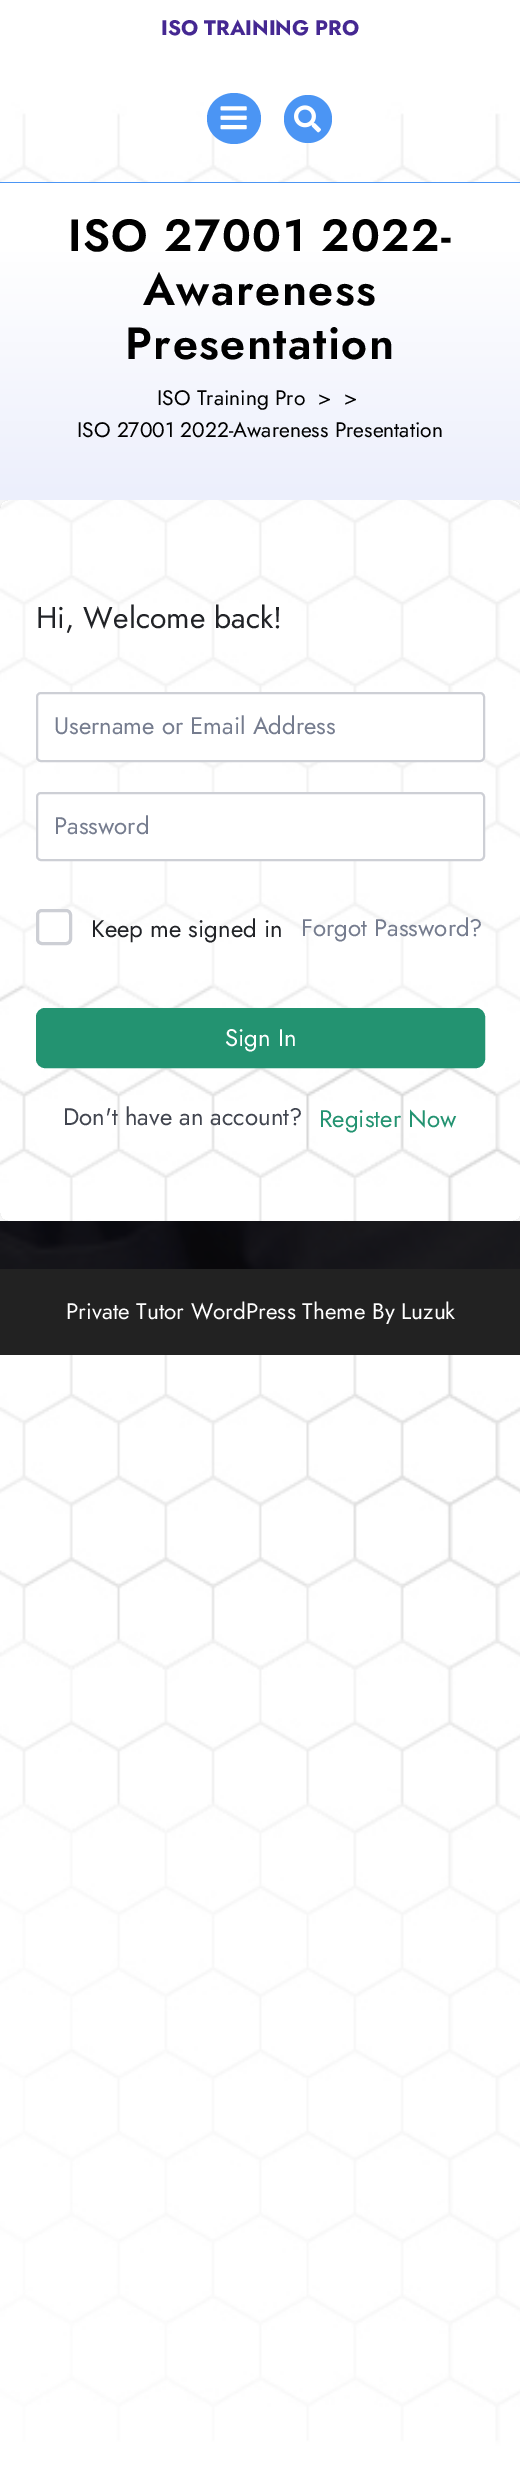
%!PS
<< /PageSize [520 2489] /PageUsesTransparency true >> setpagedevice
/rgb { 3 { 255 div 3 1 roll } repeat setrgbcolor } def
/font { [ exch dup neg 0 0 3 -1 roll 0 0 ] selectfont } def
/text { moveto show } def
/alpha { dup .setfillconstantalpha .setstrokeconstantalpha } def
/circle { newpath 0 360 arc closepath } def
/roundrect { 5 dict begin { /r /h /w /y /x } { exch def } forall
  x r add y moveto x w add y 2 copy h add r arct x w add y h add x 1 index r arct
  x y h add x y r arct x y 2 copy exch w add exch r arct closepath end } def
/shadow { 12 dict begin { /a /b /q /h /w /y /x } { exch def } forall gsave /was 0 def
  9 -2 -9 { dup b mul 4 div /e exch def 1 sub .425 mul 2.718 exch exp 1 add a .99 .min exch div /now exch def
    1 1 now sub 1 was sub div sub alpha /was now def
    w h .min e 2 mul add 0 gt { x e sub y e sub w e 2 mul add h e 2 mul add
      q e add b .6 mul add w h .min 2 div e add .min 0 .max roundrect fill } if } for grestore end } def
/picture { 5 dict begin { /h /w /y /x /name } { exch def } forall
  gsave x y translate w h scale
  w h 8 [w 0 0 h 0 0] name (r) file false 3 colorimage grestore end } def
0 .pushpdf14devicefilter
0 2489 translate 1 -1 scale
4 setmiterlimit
255 255 255 rgb
0 0 520 2489 rectfill
(img_01.rgb) 0 0 520 2489 picture
75 149 244 rgb
0 182 520 1 rectfill
234 93 moveto 15 0 27 11.5 27 25.5 rcurveto 0 14 -12 25.5 -27 25.5 rcurveto -15 0 -27 -11.5 -27 -25.5 rcurveto 0 -14 12 -25.5 27 -25.5 rcurveto closepath fill
(img_02.rgb) 220 106 27 24 picture
308 119 24 circle fill
(img_03.rgb) 294 105 27 28 picture
gsave
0 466 moveto 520 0 rlineto 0 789 rlineto -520 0 rlineto closepath 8 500 moveto 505 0 rlineto 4.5 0 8 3.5 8 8 rcurveto 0 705 rlineto 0 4.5 -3.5 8 -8 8 rcurveto -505 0 rlineto -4.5 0 -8 -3.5 -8 -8 rcurveto 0 -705 rlineto 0 -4.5 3.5 -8 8 -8 rcurveto closepath eoclip newpath
0 0 0 rgb
0 500 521 721 8 11 0.1 shadow
grestore
gsave 0 183 moveto 520 0 rlineto 0 317 rlineto -520 0 rlineto closepath clip newpath
<< /ShadingType 2 /ColorSpace /DeviceRGB /Coords [260 500 260 183] /Extend [true true] /Function << /FunctionType 3 /Domain [0 1] /Functions [<< /FunctionType 2 /Domain [0 1] /C0 [0.925 0.937 0.988] /C1 [1 1 1] /N 1 >> << /FunctionType 2 /Domain [0 1] /C0 [1 1 1] /C1 [1 1 1] /N 1 >>] /Bounds [0.8] /Encode [0 1 0 1] >> >> shfill grestore
255 255 255 rgb
37 693 447 68 4 roundrect gsave fill grestore
205 207 213 rgb
2 setlinewidth
stroke
255 255 255 rgb
37 793 447 67 4 roundrect gsave fill grestore
205 207 213 rgb
stroke
255 255 255 rgb
37.5 910.5 33 33 4.5 roundrect gsave fill grestore
205 207 213 rgb
3 setlinewidth
stroke
35 147 113 rgb
37 1009 447 58 8 roundrect gsave fill grestore
2 setlinewidth
stroke
(img_04.rgb) 0 1221 520 48 picture
34 34 34 rgb
0 1269 520 86 rectfill
/Jost-Bold 21 font
69 40 146 rgb
(ISO TRAINING PRO) 161 35 text
/Jost-SemiBold 45 font
0 0 0 rgb
68 251 moveto 1.5 0 (ISO 27001 2022-) ashow
143 305 moveto 1.5 0 (Awareness) ashow
125 359 moveto 1.5 0 (Presentation) ashow
/Jost-Regular 21 font
(ISO Training Pro) 157 405 text
(>  >) 318 405 text
(ISO 27001 2022-Awareness Presentation) 77 437 text
/Jost-Regular 30 font
33 35 39 rgb
(Hi, Welcome back!) 36 628 text
/Jost-Regular 24 font
117 124 142 rgb
(Username or Email Address) 54 734 text
(Password) 54 834 text
33 35 39 rgb
(Keep me signed in) 91 937 text
117 124 142 rgb
(Forgot Password?) 301 936 text
255 255 255 rgb
(Sign In) 225 1046 text
65 69 79 rgb
(Don't have an account?) 63 1125 text
35 147 113 rgb
(Register Now) 319 1127 text
/Jost-Regular 22.5 font
255 255 255 rgb
(Private Tutor WordPress Theme By Luzuk) 66 1319 text
.poppdf14devicefilter showpage
